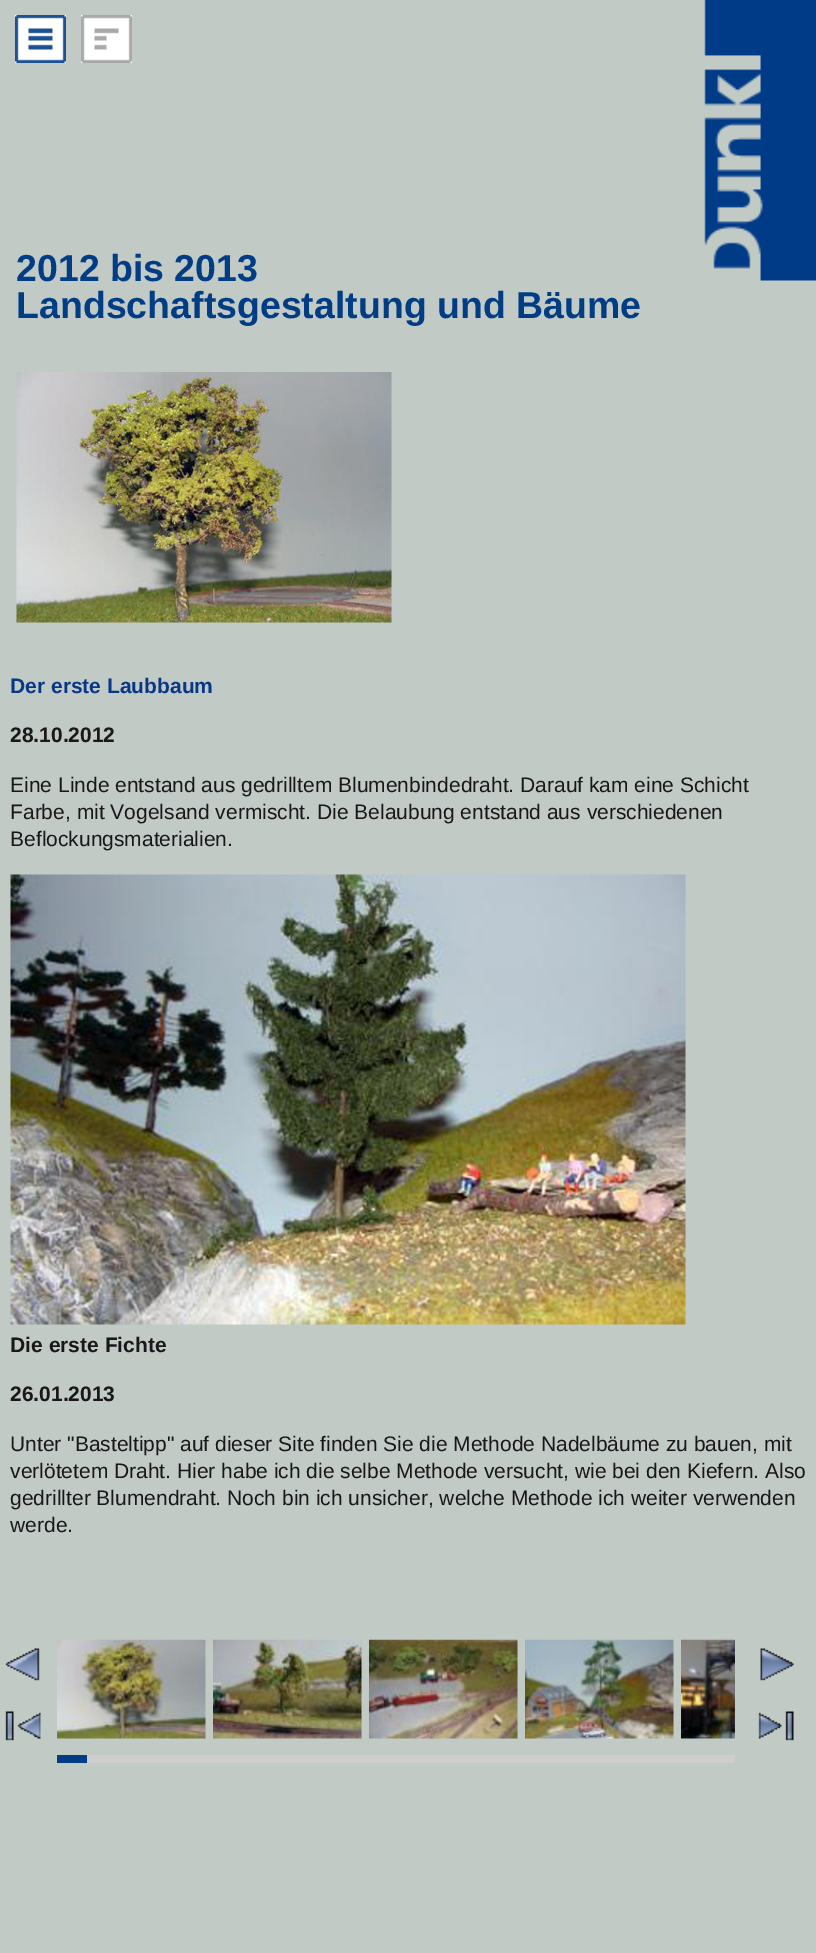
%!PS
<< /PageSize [816 1953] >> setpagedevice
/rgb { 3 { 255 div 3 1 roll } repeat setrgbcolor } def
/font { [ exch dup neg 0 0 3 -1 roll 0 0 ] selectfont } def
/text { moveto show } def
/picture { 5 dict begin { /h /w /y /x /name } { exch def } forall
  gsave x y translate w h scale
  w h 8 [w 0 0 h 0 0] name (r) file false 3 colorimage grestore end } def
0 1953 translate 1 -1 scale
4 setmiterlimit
193 202 197 rgb
0 0 816 1953 rectfill
(img_01.rgb) 15 15 51 48 picture
(img_02.rgb) 81 15 51 48 picture
(img_03.rgb) 704 0 112 281 picture
(img_04.rgb) 16 372 376 251 picture
(img_05.rgb) 10 874 676 451 picture
(img_06.rgb) 5 1648 35 33 picture
(img_07.rgb) 5 1711 36 30 picture
(img_08.rgb) 57 1639 149 100 picture
(img_09.rgb) 213 1639 149 100 picture
(img_10.rgb) 369 1639 149 100 picture
(img_11.rgb) 525 1639 149 100 picture
(img_12.rgb) 681 1639 54 100 picture
(img_13.rgb) 760 1648 34 33 picture
(img_14.rgb) 758 1711 36 30 picture
206 206 206 rgb
87 1755 648 8 rectfill
0 61 133 rgb
57 1755 30 8 rectfill
/LiberationSans-Bold 37.5 font
(2012 bis 2013) 16 281 text
(Landschaftsgestaltung und Bäume) 16 318 text
/LiberationSans-Bold 21 font
8 55 136 rgb
(Der erste Laubbaum) 10 693 text
26 23 27 rgb
(28.10.2012) 10 742 text
/LiberationSans-Regular 21 font
(Eine Linde entstand aus gedrilltem Blumenbindedraht. Darauf kam eine Schicht) 10 792 text
(Farbe, mit Vogelsand vermischt. Die Belaubung entstand aus verschiedenen) 10 819 text
(Beflockungsmaterialien.) 10 846 text
/LiberationSans-Bold 21 font
(Die erste Fichte) 10 1352 text
(26.01.2013) 10 1401 text
/LiberationSans-Regular 21 font
(Unter "Basteltipp" auf dieser Site finden Sie die Methode Nadelbäume zu bauen, mit) 10 1451 text
(verlötetem Draht. Hier habe ich die selbe Methode versucht, wie bei den Kiefern. Also) 10 1478 text
(gedrillter Blumendraht. Noch bin ich unsicher, welche Methode ich weiter verwenden) 10 1505 text
(werde.) 10 1532 text
showpage
